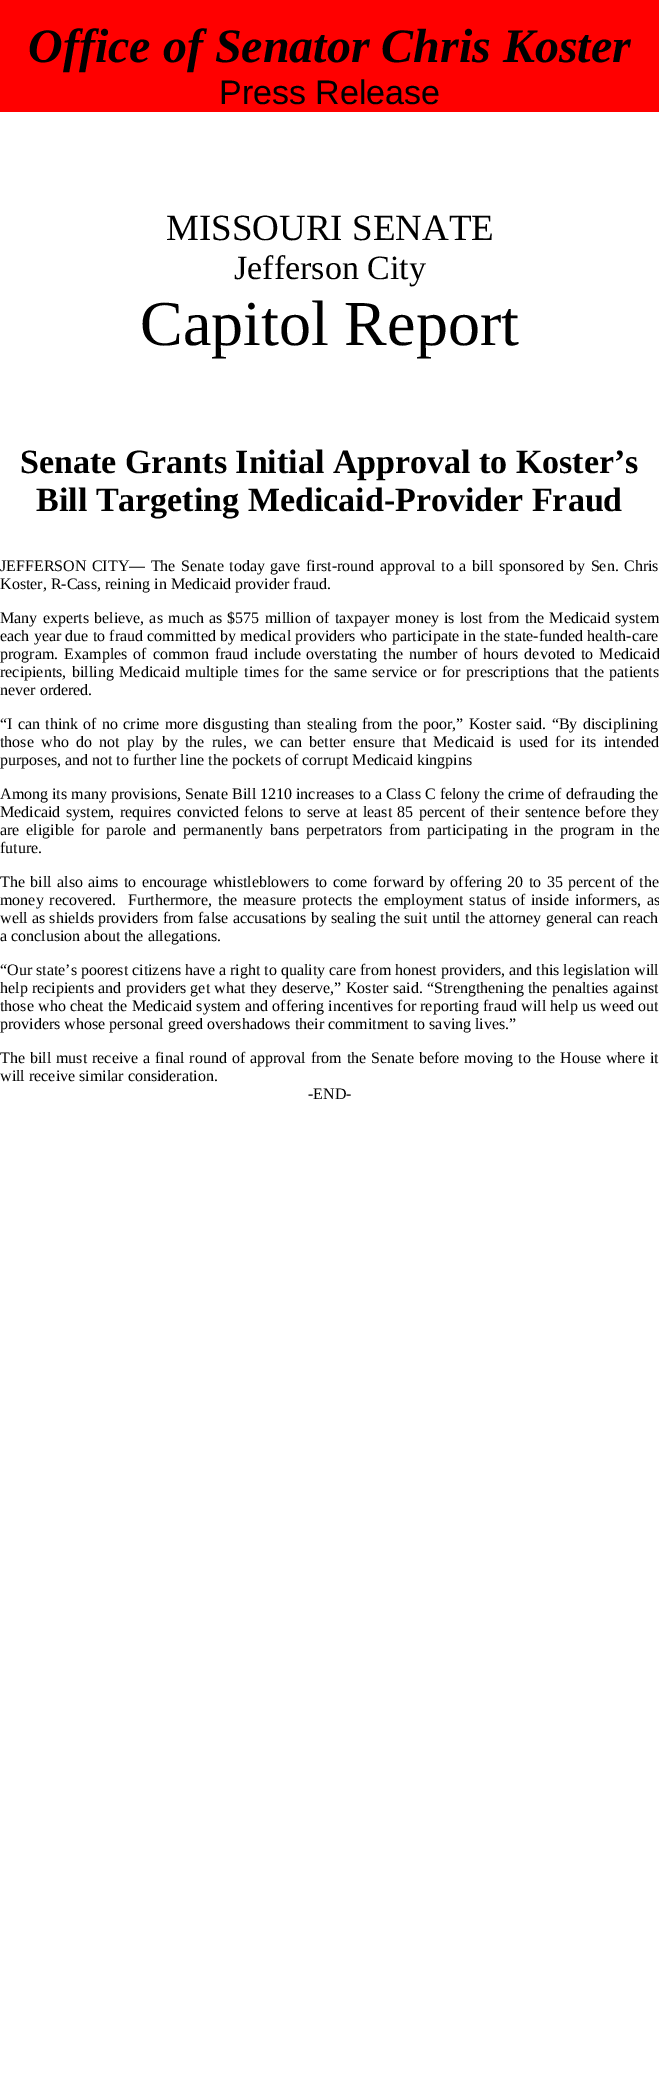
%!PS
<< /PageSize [659 2100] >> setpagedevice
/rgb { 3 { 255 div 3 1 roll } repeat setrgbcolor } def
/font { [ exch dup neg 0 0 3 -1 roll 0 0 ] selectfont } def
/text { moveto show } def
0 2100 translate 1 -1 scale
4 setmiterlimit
255 255 255 rgb
0 0 659 2100 rectfill
255 0 0 rgb
0 0 659 112 rectfill
/LiberationSerif-BoldItalic 48 font
0 0 0 rgb
(Office of Senator Chris Koster) 28 62 text
/LiberationSans-Regular 34 font
(Press Release) 219 104 text
/LiberationSerif-Regular 37 font
(MISSOURI SENATE) 166 240 text
/LiberationSerif-Regular 34 font
(Jefferson City) 234 279 text
/LiberationSerif-Regular 64 font
(Capitol Report) 140 345 text
/LiberationSerif-Bold 34 font
(Senate Grants Initial Approval to Koster’s) 20 473 text
(Bill Targeting Medicaid-Provider Fraud) 36 511 text
/LiberationSerif-Regular 16 font
0 571 moveto 1.5 0 32 (JEFFERSON CITY— The Senate today gave first-round approval to a bill sponsored by Sen. Chris) widthshow
(Koster, R-Cass, reining in Medicaid provider fraud.) 0 589 text
0 623 moveto 1.25 0 32 (Many experts believe, as much as $575 million of taxpayer money is lost from the Medicaid system) widthshow
0 641 moveto 0.25 0 32 (each year due to fraud committed by medical providers who participate in the state-funded health-care) widthshow
0 659 moveto 2 0 32 (program. Examples of common fraud include) widthshow
306 659 moveto 2 0 32 (overstating the number of hours devoted to Medicaid) widthshow
0 677 moveto 1.6 0 32 (recipients, billing Medicaid multiple times for the same service or for prescriptions that the patients) widthshow
(never ordered.) 0 695 text
0 729 moveto 1.25 0 32 (“I can think of no crime more disgusting than stealing from the poor,” Koster said. “By disciplining) widthshow
0 747 moveto 3.25 0 32 (those who do not play by the rules, we can better ensure that Medicaid is used for its intended) widthshow
(purposes, and not to further line the pockets of corrupt Medicaid kingpins) 0 765 text
(Among its many provisions, Senate Bill 1210 increases to a Class C felony the crime of defrauding the) 0 799 text
0 817 moveto 1.4 0 32 (Medicaid system, requires convicted felons to serve at least 85 percent of their sentence before they) widthshow
0 835 moveto 2.75 0 32 (are eligible for parole and permanently bans perpetrators from participating in the program in the) widthshow
(future.) 0 853 text
0 887 moveto 1.4 0 32 (The bill also aims to encourage whistleblowers to come forward by offering 20 to 35 percent of the) widthshow
0 905 moveto 1.75 0 32 (money recovered.  Furthermore, the measure protects the employment status of inside informers, as) widthshow
0 923 moveto 0.25 0 32 (well as shields providers from false accusations by sealing the suit until the attorney general can reach) widthshow
(a conclusion about the allegations.) 0 941 text
(“Our state’s poorest citizens have a right to quality care from honest providers, and this legislation will) 0 975 text
0 993 moveto 0.3 0 32 (help recipients and providers get what they deserve,” Koster said. “Strengthening the penalties against) widthshow
0 1011 moveto 0.25 0 32 (those who cheat the Medicaid system and offering incentives for reporting fraud will help us weed out) widthshow
(providers whose personal greed overshadows their commitment to saving lives.”) 0 1029 text
0 1063 moveto 0.9 0 32 (The bill must receive a final round of approval from the Senate before moving to the House where it) widthshow
(will receive similar consideration.) 0 1081 text
(-END-) 308 1099 text
showpage
